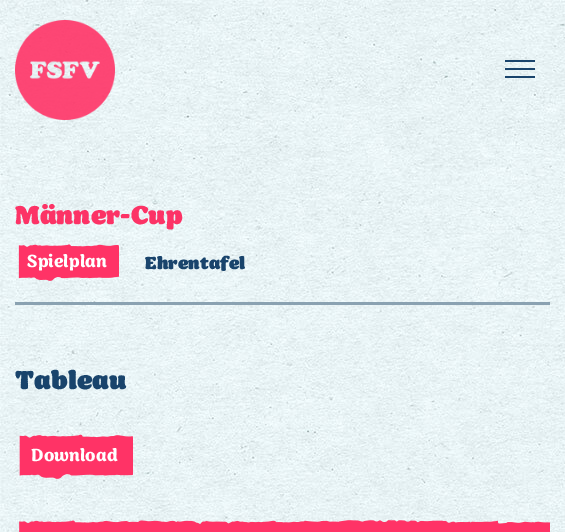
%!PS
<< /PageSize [565 532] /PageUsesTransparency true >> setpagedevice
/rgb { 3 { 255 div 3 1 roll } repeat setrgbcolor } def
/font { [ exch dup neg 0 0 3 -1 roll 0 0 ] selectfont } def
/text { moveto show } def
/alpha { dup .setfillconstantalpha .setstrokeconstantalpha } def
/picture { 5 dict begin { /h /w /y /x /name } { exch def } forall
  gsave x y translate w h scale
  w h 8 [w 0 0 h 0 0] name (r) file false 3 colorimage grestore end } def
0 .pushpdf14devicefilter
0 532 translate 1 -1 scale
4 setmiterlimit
255 255 255 rgb
0 0 565 532 rectfill
(img_01.rgb) 0 0 565 532 picture
(img_02.rgb) 15 20 100 100 picture
25 68 108 rgb
505 68 30 2 rectfill
505 60 30 2 rectfill
505 76 30 2 rectfill
(img_03.rgb) 18 244 101 37 picture
0.9 alpha
128 153 170 rgb
15 302 535 3 rectfill
1 alpha
(img_04.rgb) 19 434 114 45 picture
(img_05.rgb) 19 520 531 12 picture
/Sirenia-Black 29.5 font
252 51 102 rgb
(Männer-Cup) 15 224 text
/Sirenia-SemiBold 20 font
255 255 255 rgb
(Spielplan) 27 267 text
/Sirenia-Black 20 font
25 68 108 rgb
(Ehrentafel) 145 269 text
/Sirenia-Black 29.5 font
(Tableau) 15 389 text
/Sirenia-SemiBold 20 font
255 255 255 rgb
(Download) 31 461 text
.poppdf14devicefilter showpage
